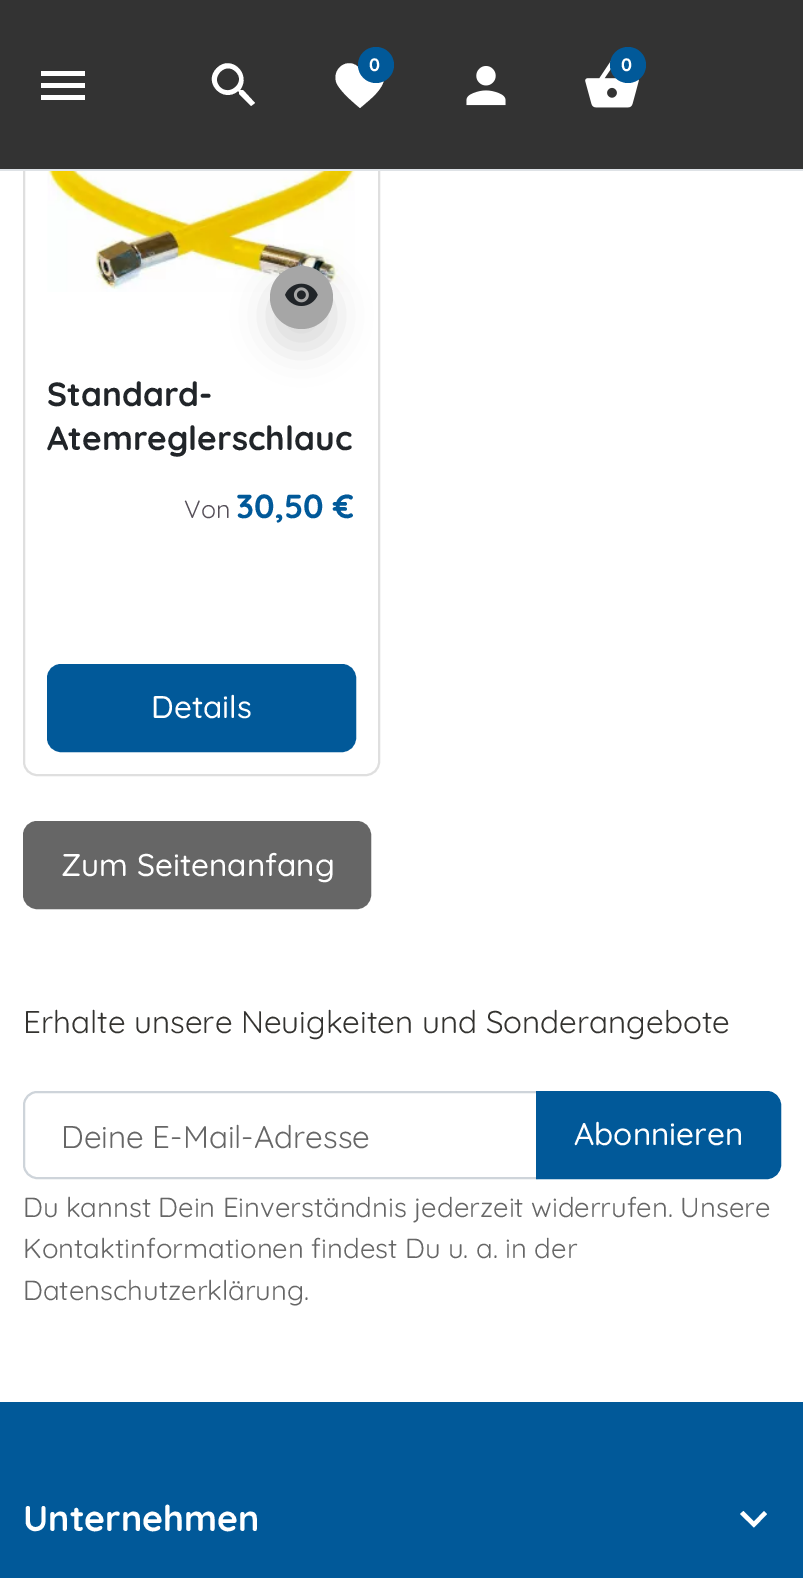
%!PS
<< /PageSize [803 1578] /PageUsesTransparency true >> setpagedevice
/rgb { 3 { 255 div 3 1 roll } repeat setrgbcolor } def
/font { [ exch dup neg 0 0 3 -1 roll 0 0 ] selectfont } def
/text { moveto show } def
/alpha { dup .setfillconstantalpha .setstrokeconstantalpha } def
/circle { newpath 0 360 arc closepath } def
/roundrect { 5 dict begin { /r /h /w /y /x } { exch def } forall
  x r add y moveto x w add y 2 copy h add r arct x w add y h add x 1 index r arct
  x y h add x y r arct x y 2 copy exch w add exch r arct closepath end } def
/shadow { 12 dict begin { /a /b /q /h /w /y /x } { exch def } forall gsave /was 0 def
  9 -2 -9 { dup b mul 4 div /e exch def 1 sub .425 mul 2.718 exch exp 1 add a .99 .min exch div /now exch def
    1 1 now sub 1 was sub div sub alpha /was now def
    w h .min e 2 mul add 0 gt { x e sub y e sub w e 2 mul add h e 2 mul add
      q e add b .6 mul add w h .min 2 div e add .min 0 .max roundrect fill } if } for grestore end } def
/picture { 5 dict begin { /h /w /y /x /name } { exch def } forall
  gsave x y translate w h scale
  w h 8 [w 0 0 h 0 0] name (r) file false 3 colorimage grestore end } def
0 .pushpdf14devicefilter
0 1578 translate 1 -1 scale
4 setmiterlimit
255 255 255 rgb
0 0 803 1578 rectfill
223 223 223 rgb
2 setlinewidth
24 19 355 756 13 roundrect stroke
51 51 51 rgb
0 0 803 169 rectfill
222 226 230 rgb
0 169 803 2 rectfill
255 255 255 rgb
41 71 moveto 44 0 rlineto 0 5 rlineto -44 0 rlineto closepath 41 88 moveto 0 -5 rlineto 44 0 rlineto 0 5 rlineto closepath 41 100 moveto 0 -5 rlineto 44 0 rlineto 0 5 rlineto closepath fill
220 87 moveto 10 10 26 -5 16 -15 rcurveto -10 -11 -26 5 -16 15 rcurveto closepath 243 90 moveto 12 13 rlineto -4 3 rlineto -12 -12 rlineto 0 -2 rlineto -1 -1 rlineto -15 13 -36 -9 -21 -23 rcurveto 14 -14 35 6 23 22 rcurveto 1 0 rlineto closepath fill
360 108 moveto -7 -6 -18 -15 -23 -24 rcurveto -7 -15 12 -29 23 -15 rcurveto 10 -13 29 -1 23 14 rcurveto -4 10 -15 18 -23 25 rcurveto closepath fill
1 89 153 rgb
376 65 18 circle fill
(img_01.rgb) 466 66 40 40 picture
(img_02.rgb) 585 61 54 47 picture
628 65 18 circle fill
(img_03.rgb) 47 171 309 121 picture
0 0 0 rgb
270 284 63 63 31.5 18 0.15 shadow
166 166 166 rgb
301.5 297.5 31.5 circle fill
(img_04.rgb) 285 283 33 23 picture
1 89 153 rgb
48 665 307 86 13 roundrect gsave fill grestore
stroke
102 102 102 rgb
24 822 346 86 13 roundrect gsave fill grestore
stroke
206 212 218 rgb
37 1092 moveto 500 0 rlineto 0 86 rlineto -500 0 rlineto -7 0 -13 -6 -13 -13 rcurveto 0 -60 rlineto 0 -7 6 -13 13 -13 rcurveto closepath stroke
1 89 153 rgb
537 1092 moveto 230 0 rlineto 7 0 13 6 13 13 rcurveto 0 60 rlineto 0 7 -6 13 -13 13 rcurveto -230 0 rlineto closepath gsave fill grestore
stroke
0 1402 803 176 rectfill
255 255 255 rgb
743.5 1511 moveto 10.5 10.5 rlineto 10 -10.5 rlineto 3 3 rlineto -13 13.5 rlineto -14 -13.5 rlineto closepath fill
/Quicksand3-Light 18 font
(0) 369 71 text
(0) 621 71 text
/Quicksand3-Light 33.5 font
33 37 41 rgb
(Standard-) 47 406 text
(Atemreglerschlauc) 47 450 text
/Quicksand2-Light 25 font
85 79 88 rgb
(Von) 184 518 text
/Quicksand3-Light 33.5 font
1 89 153 rgb
(30,50 €) 236 518 text
/Quicksand-Light 31.4 font
255 255 255 rgb
(Details) 151 718 text
(Zum Seitenanfang) 61 876 text
/Quicksand2-Light 31.4 font
51 50 47 rgb
(Erhalte unsere Neuigkeiten und Sonderangebote) 23 1033 text
102 102 102 rgb
(Deine E-Mail-Adresse) 61 1148 text
/Quicksand-Light 31.4 font
255 255 255 rgb
(Abonnieren) 574 1145 text
/Quicksand2-Light 27.5 font
102 102 102 rgb
23 1217 moveto -0.25 0 32 (Du kannst Dein Einverständnis jederzeit widerrufen. Unsere) widthshow
(Kontaktinformationen findest Du u. a. in der) 23 1258 text
(Datenschutzerklärung.) 23 1300 text
/Quicksand3-Light 35.75 font
255 255 255 rgb
(Unternehmen) 23 1531 text
.poppdf14devicefilter showpage
